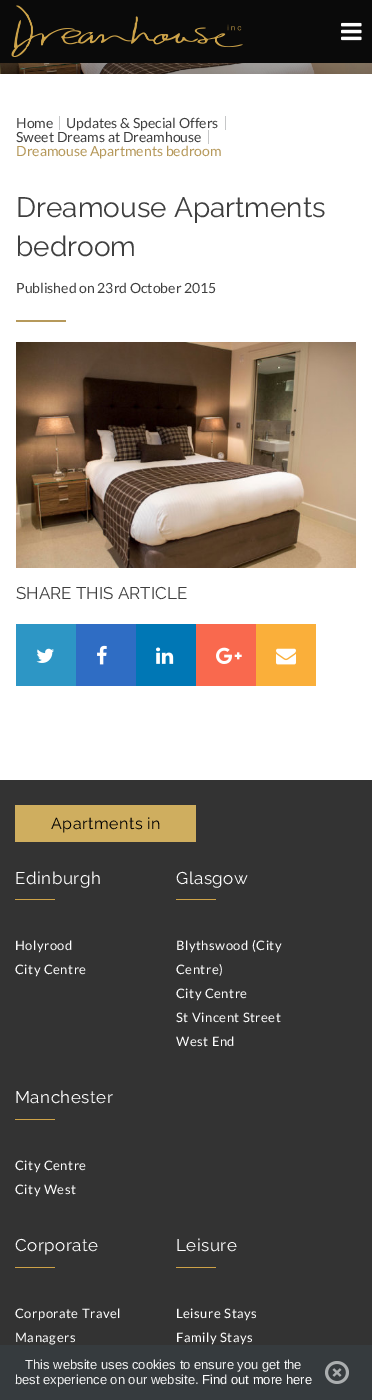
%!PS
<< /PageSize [372 1400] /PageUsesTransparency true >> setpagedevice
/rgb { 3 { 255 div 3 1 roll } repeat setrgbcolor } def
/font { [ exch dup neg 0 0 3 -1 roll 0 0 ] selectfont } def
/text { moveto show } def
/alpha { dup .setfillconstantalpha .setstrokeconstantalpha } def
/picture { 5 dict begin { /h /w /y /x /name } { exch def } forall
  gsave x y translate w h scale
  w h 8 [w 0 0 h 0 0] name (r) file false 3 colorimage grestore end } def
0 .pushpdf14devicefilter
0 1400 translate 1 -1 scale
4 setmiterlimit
255 255 255 rgb
0 0 372 1400 rectfill
10 10 10 rgb
0 0 372 63 rectfill
(img_01.rgb) 11 5 232 52 picture
(img_02.rgb) 341 22 21 19 picture
(img_03.rgb) 0 63 372 11 picture
198 199 200 rgb
59 116 1 14 rectfill
225 116 1 14 rectfill
182 153 91 rgb
16 320 50 2 rectfill
(img_04.rgb) 16 342 340 226 picture
45 150 197 rgb
16 624 60 62 rectfill
(img_05.rgb) 36 648 18 15 picture
47 109 196 rgb
76 624 60 62 rectfill
(img_06.rgb) 97 645 10 20 picture
0 119 181 rgb
136 624 60 62 rectfill
(img_07.rgb) 156 647 18 17 picture
249 105 78 rgb
196 624 60 62 rectfill
(img_08.rgb) 216 647 26 17 picture
250 175 58 rgb
256 624 60 62 rectfill
(img_09.rgb) 276 648 20 17 picture
51 51 51 rgb
0 780 372 620 rectfill
207 174 95 rgb
15 805 181 37 rectfill
205 162 72 rgb
15 899 40 1 rectfill
176 899 40 1 rectfill
15 1119 40 1 rectfill
15 1267 40 1 rectfill
176 1267 40 1 rectfill
0.8 alpha
55 61 65 rgb
0 1345 372 55 rectfill
1 alpha
(img_10.rgb) 325 1361 24 23 picture
/Lato-Regular 14 font
63 63 63 rgb
(Home) 16 128 text
(Updates & Special Offers) 66 128 text
198 199 200 rgb
208 130 1 14 rectfill
63 63 63 rgb
(Sweet Dreams at Dreamhouse) 16 142 text
182 153 91 rgb
(Dreamouse Apartments bedroom) 16 156 text
/Raleway-Regular 28 font
63 63 63 rgb
(Dreamouse Apartments) 16 217 text
(bedroom) 16 256 text
/Lato-Regular 14 font
(Published on 23rd October 2015) 16 293 text
/Raleway-Regular 17 font
(SHARE THIS ARTICLE) 16 599 text
/Raleway-Regular 16 font
0 0 0 rgb
51 829 moveto 0.5 0 (Apartments in) ashow
/Raleway-Regular 17 font
254 254 254 rgb
15 884 moveto 0.5 0 (Edinburgh) ashow
/Lato-Regular 13 font
15 950 moveto 0.5 0 (Holyrood) ashow
15 974 moveto 0.5 0 (City Centre) ashow
/Raleway-Regular 17 font
176 884 moveto 0.5 0 (Glasgow) ashow
/Lato-Regular 13 font
176 950 moveto 0.5 0 (Blythswood \(City) ashow
176 974 moveto 0.5 0 (Centre\)) ashow
176 998 moveto 0.5 0 (City Centre) ashow
176 1022 moveto 0.5 0 (St Vincent Street) ashow
176 1046 moveto 0.5 0 (West End) ashow
/Raleway-Regular 17 font
15 1103 moveto 0.5 0 (Manchester) ashow
/Lato-Regular 13 font
15 1170 moveto 0.5 0 (City Centre) ashow
15 1194 moveto 0.5 0 (City West) ashow
/Raleway-Regular 17 font
15 1251 moveto 0.5 0 (Corporate) ashow
/Lato-Regular 13 font
15 1318 moveto 0.5 0 (Corporate Travel) ashow
15 1342 moveto 0.5 0 (Managers) ashow
/Raleway-Regular 17 font
176 1251 moveto 0.5 0 (Leisure) ashow
/Lato-Regular 13 font
176 1318 moveto 0.5 0 (Leisure Stays) ashow
176 1342 moveto 0.5 0 (Family Stays) ashow
/LiberationSans-Regular 13 font
242 242 242 rgb
(This website uses cookies to ensure you get the) 25 1369 text
(best experience on our website.) 15 1384 text
254 254 254 rgb
(Find out more here) 202 1384 text
.poppdf14devicefilter showpage
